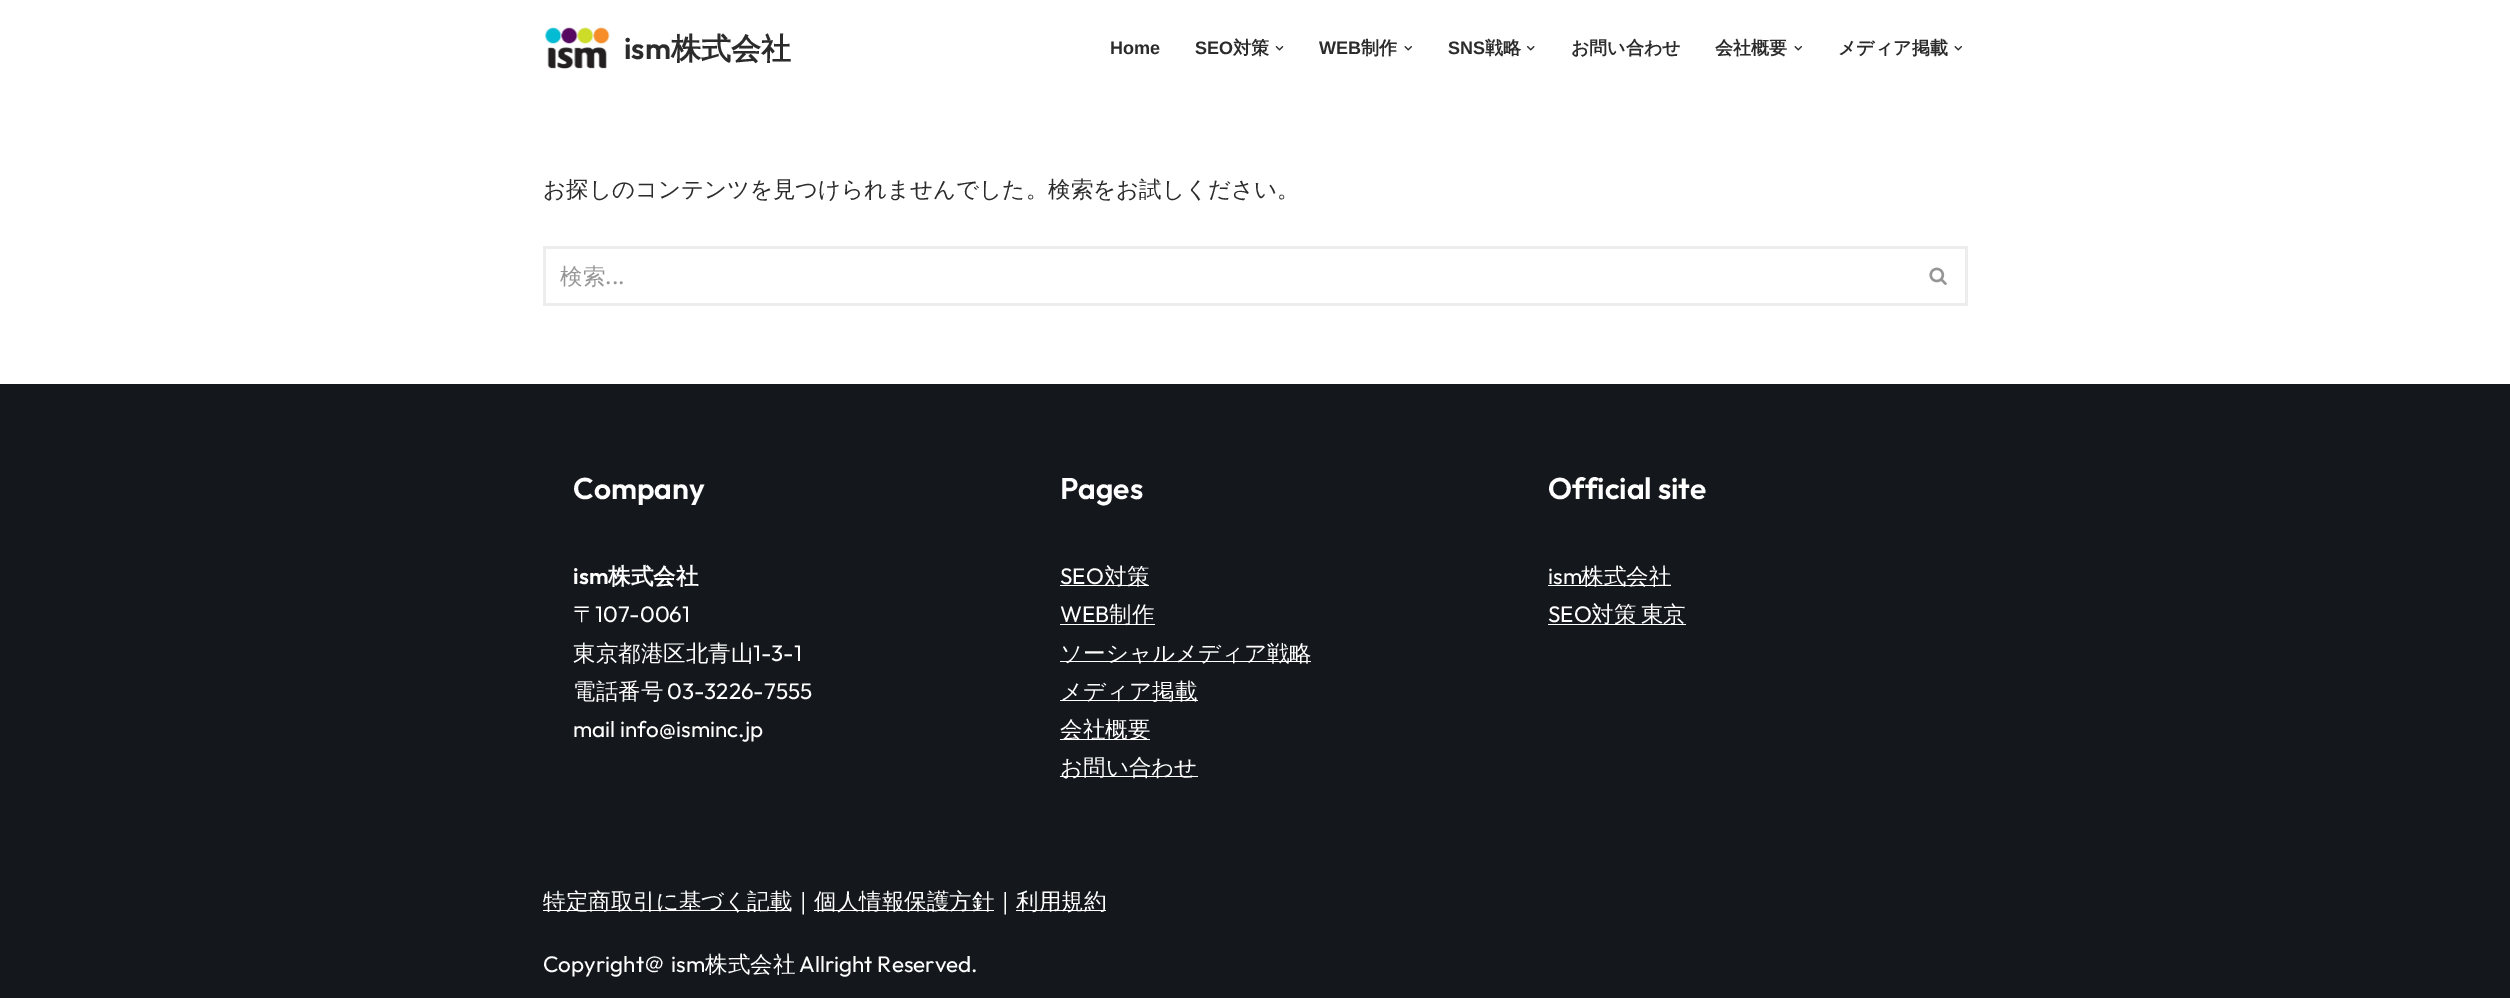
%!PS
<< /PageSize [2510 998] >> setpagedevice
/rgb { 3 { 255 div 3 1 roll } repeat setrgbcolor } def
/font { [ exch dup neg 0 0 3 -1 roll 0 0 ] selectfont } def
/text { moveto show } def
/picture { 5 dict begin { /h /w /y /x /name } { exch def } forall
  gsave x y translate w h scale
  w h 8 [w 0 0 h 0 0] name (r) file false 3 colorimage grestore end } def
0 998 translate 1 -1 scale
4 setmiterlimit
255 255 255 rgb
0 0 2510 998 rectfill
(img_01.rgb) 545 27 65 42 picture
(img_02.rgb) 1275 46 9 5 picture
(img_03.rgb) 1404 46 8 5 picture
(img_04.rgb) 1527 46 8 5 picture
(img_03.rgb) 1794 46 8 5 picture
(img_03.rgb) 1954 46 8 5 picture
237 237 237 rgb
543 246 1425 3 rectfill
543 303 1368 3 rectfill
543 246 3 59 rectfill
1965 246 3 59 rectfill
1911 303 57 3 rectfill
(img_05.rgb) 1929 267 18 18 picture
20 23 28 rgb
0 384 2510 614 rectfill
255 255 255 rgb
1060 585 89 1 rectfill
1060 624 95 1 rectfill
1060 661 251 1 rectfill
1060 700 138 1 rectfill
1060 739 90 1 rectfill
1060 776 138 1 rectfill
1548 585 123 1 rectfill
1548 624 138 1 rectfill
543 910 248 1 rectfill
814 910 180 1 rectfill
1016 910 90 1 rectfill
/Outfit-SemiBold 30 font
43 43 43 rgb
(ism) 624 59 text
/WenQuanYiZenHei-Bold 30 font
(株式会社) 671 59 text
/LiberationSans-Bold 18 font
(Home) 1110 54 text
(SEO) 1195 54 text
/WenQuanYiZenHei-Bold 18 font
(対策) 1233 54 text
/LiberationSans-Bold 18 font
(WEB) 1319 54 text
/WenQuanYiZenHei-Bold 18 font
(制作) 1361 54 text
/LiberationSans-Bold 18 font
(SNS) 1448 54 text
/WenQuanYiZenHei-Bold 18 font
(戦略) 1485 54 text
(お問い合わせ) 1571 54 text
(会社概要) 1715 54 text
(メディア掲載) 1838 54 text
/WenQuanYiZenHei-Medium 22.5 font
(お探しのコンテンツを見つけられませんでした。検索をお試しください。) 543 197 text
149 149 149 rgb
(検索) 560 284 text
/Outfit-Regular 22.5 font
(...) 605 284 text
/Outfit-SemiBold 30 font
255 255 255 rgb
(Company) 573 499 text
/Outfit-SemiBold 22.5 font
(ism) 573 584 text
/WenQuanYiZenHei-Bold 22.5 font
(株式会社) 608 584 text
/WenQuanYiZenHei-Medium 22.5 font
(〒) 573 622 text
/Outfit-Regular 22.5 font
(107-0061) 595 622 text
/WenQuanYiZenHei-Medium 22.5 font
(東京都港区北青山) 573 661 text
/Outfit-Regular 22.5 font
(1-3-1) 753 661 text
/WenQuanYiZenHei-Medium 22.5 font
(電話番号) 573 699 text
/Outfit-Regular 22.5 font
(03-3226-7555) 667 699 text
(mail info@isminc.jp) 573 737 text
/Outfit-SemiBold 30 font
(Pages) 1060 499 text
/Outfit-Regular 22.5 font
(SEO) 1060 584 text
/WenQuanYiZenHei-Medium 22.5 font
(対策) 1104 584 text
/Outfit-Regular 22.5 font
(WEB) 1060 622 text
/WenQuanYiZenHei-Medium 22.5 font
(制作) 1109 622 text
(ソーシャルメディア戦略) 1060 661 text
(メディア掲載) 1060 699 text
(会社概要) 1060 737 text
(お問い合わせ) 1060 775 text
/Outfit-SemiBold 30 font
(Official site) 1548 499 text
/Outfit-Regular 22.5 font
(ism) 1548 584 text
/WenQuanYiZenHei-Medium 22.5 font
(株式会社) 1581 584 text
/Outfit-Regular 22.5 font
(SEO) 1548 622 text
/WenQuanYiZenHei-Medium 22.5 font
1591 622 moveto -2 0 32 (対策 東京) widthshow
(特定商取引に基づく記載｜) 543 909 text
(個人情報保護方針｜) 814 909 text
(利用規約) 1016 909 text
/Outfit-Regular 22.5 font
(Copyright) 543 972 text
/WenQuanYiZenHei-Medium 22.5 font
(＠) 643 972 text
/Outfit-Regular 22.5 font
(ism) 671 972 text
/WenQuanYiZenHei-Medium 22.5 font
(株式会社) 705 972 text
/Outfit-Regular 22.5 font
(Allright Reserved.) 799 972 text
showpage
